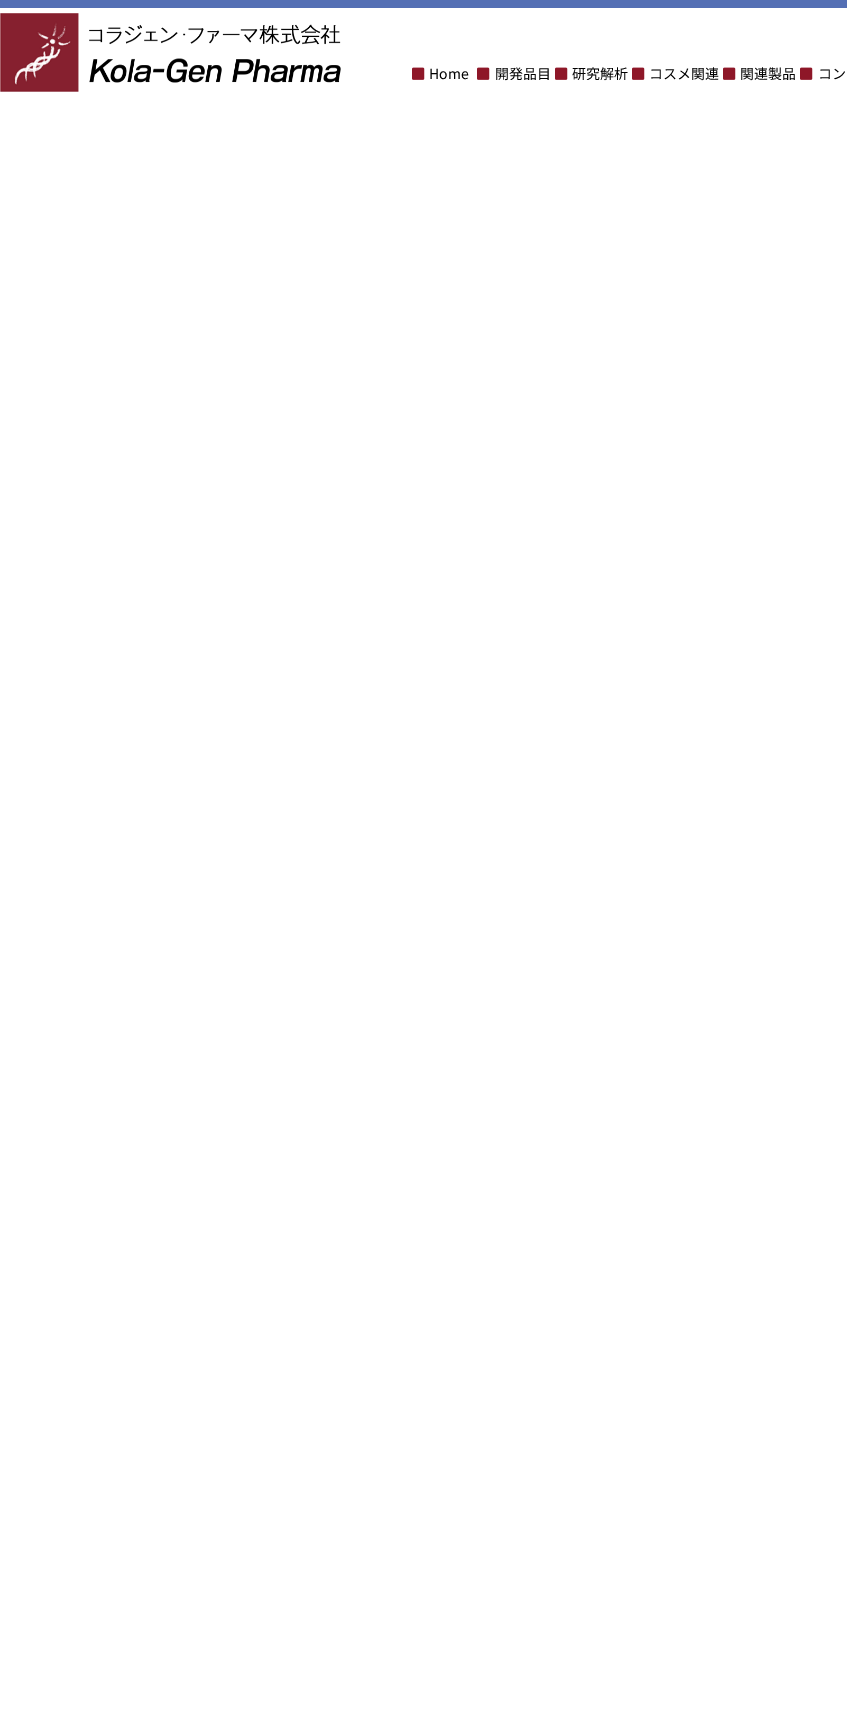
%!PS
<< /PageSize [847 1722] >> setpagedevice
/rgb { 3 { 255 div 3 1 roll } repeat setrgbcolor } def
/font { [ exch dup neg 0 0 3 -1 roll 0 0 ] selectfont } def
/text { moveto show } def
/picture { 5 dict begin { /h /w /y /x /name } { exch def } forall
  gsave x y translate w h scale
  w h 8 [w 0 0 h 0 0] name (r) file false 3 colorimage grestore end } def
0 1722 translate 1 -1 scale
4 setmiterlimit
255 255 255 rgb
0 0 847 1722 rectfill
84 111 180 rgb
0 0 847 8 rectfill
(img_01.rgb) 0 13 341 79 picture
(img_02.rgb) 412 67 13 13 picture
(img_02.rgb) 477 67 13 13 picture
(img_02.rgb) 555 67 13 13 picture
(img_02.rgb) 632 67 13 13 picture
(img_02.rgb) 723 67 13 13 picture
(img_02.rgb) 800 67 13 13 picture
/NotoSansJP-Regular 14 font
0 0 0 rgb
(Home) 429 79 text
(開発品目) 495 79 text
(研究解析) 572 79 text
(コスメ関連) 649 79 text
(関連製品) 740 79 text
(コン) 818 79 text
showpage
